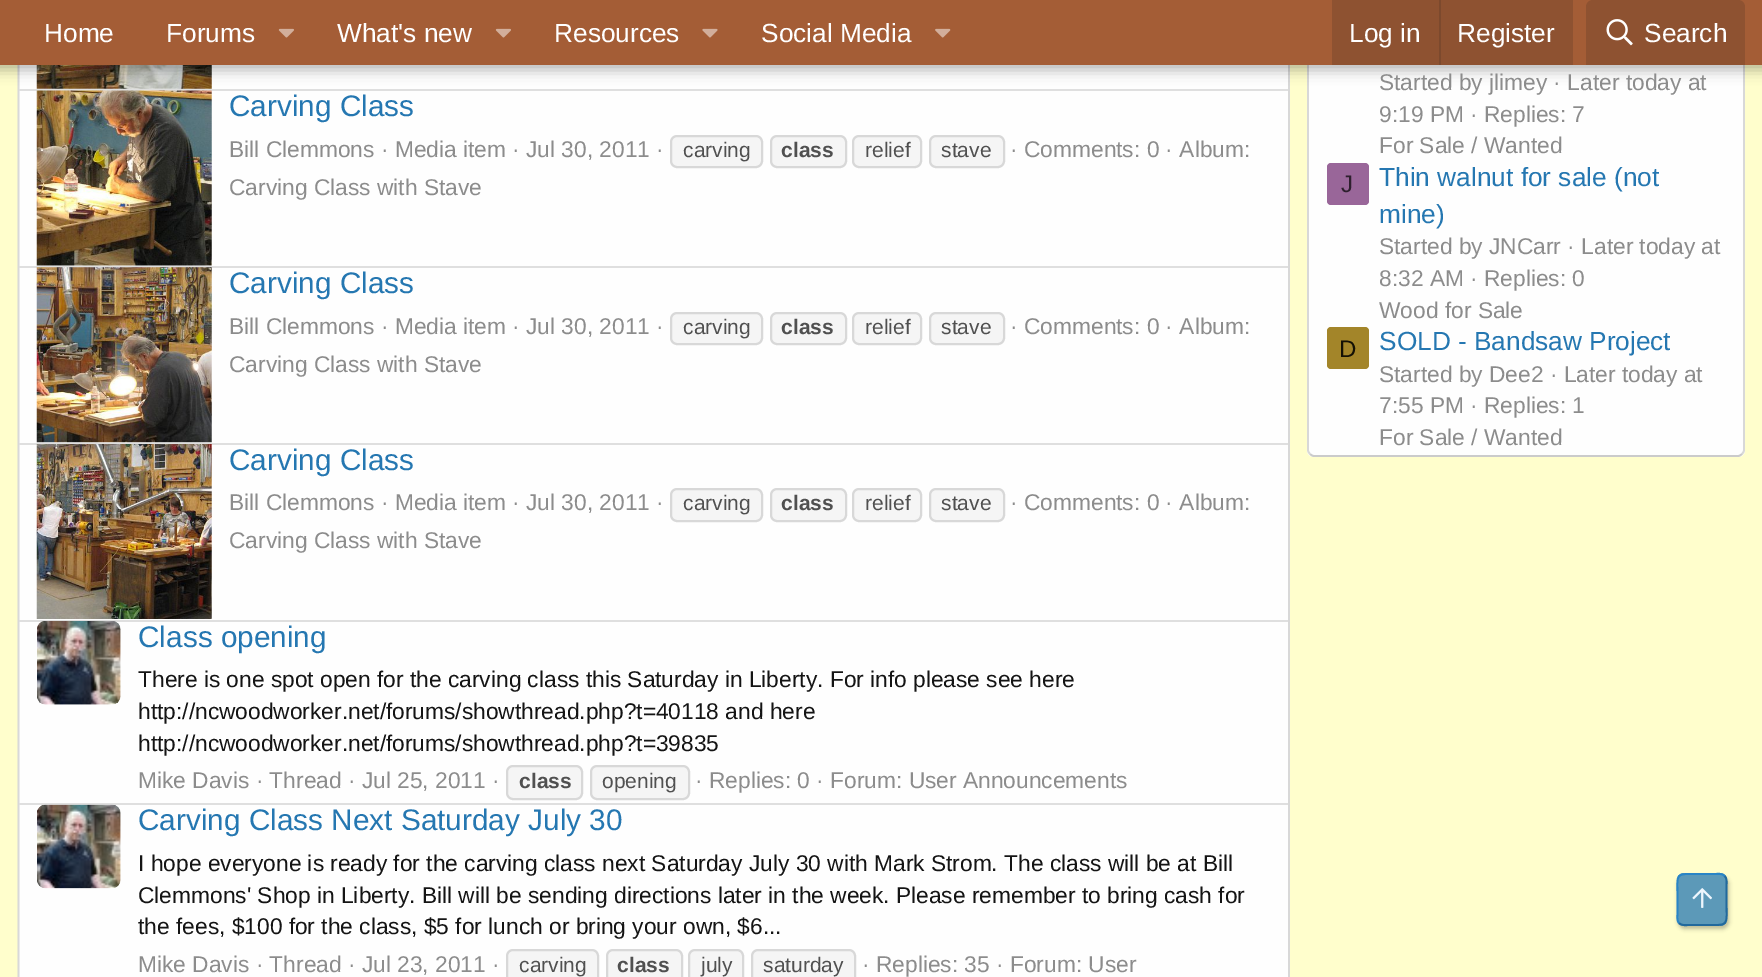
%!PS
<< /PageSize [1762 977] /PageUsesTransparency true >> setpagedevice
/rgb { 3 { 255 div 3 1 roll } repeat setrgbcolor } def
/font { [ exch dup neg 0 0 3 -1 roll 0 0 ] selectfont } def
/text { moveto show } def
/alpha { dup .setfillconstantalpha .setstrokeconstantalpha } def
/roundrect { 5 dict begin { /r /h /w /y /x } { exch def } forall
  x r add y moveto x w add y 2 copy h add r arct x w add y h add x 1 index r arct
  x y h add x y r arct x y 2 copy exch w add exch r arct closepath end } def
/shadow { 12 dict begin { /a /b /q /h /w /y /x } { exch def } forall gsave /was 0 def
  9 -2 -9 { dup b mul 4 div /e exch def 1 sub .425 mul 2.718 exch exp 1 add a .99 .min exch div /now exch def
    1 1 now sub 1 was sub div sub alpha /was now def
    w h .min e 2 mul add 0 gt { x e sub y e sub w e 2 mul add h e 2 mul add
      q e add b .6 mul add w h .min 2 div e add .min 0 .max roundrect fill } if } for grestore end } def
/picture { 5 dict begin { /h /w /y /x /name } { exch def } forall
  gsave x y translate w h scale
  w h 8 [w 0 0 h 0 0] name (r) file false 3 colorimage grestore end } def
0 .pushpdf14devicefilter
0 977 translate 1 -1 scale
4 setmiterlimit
255 254 204 rgb
0 0 1762 977 rectfill
254 254 254 rgb
19 65 1271 912 rectfill
216 216 216 rgb
1.8 setlinewidth
1287 -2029 moveto 1 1 2 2.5 2 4 rcurveto 0 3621 rlineto 0 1.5 -1 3 -2 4.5 rcurveto stroke
20 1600.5 moveto -1 -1.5 -1.5 -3 -1.5 -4.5 rcurveto 0 -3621 rlineto 0 -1.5 0.5 -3 1.5 -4 rcurveto stroke
(img_05.rgb) 36 65 176 24 picture
223 223 223 rgb
19 89 1269 2 rectfill
(img_06.rgb) 36 90 176 176 picture
254 254 254 rgb
1307 -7 438 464 7 roundrect fill
216 216 216 rgb
1742 -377 moveto 1 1 2 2.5 2 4 rcurveto 0 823 rlineto 0 1.5 -1 3 -2 4 rcurveto stroke
203 203 203 rgb
1742 454 moveto -1 1 -2.5 2 -4 2 rcurveto -424 0 rlineto -1.5 0 -3 -1 -4 -2 rcurveto stroke
216 216 216 rgb
1310 454 moveto -1 -1 -2 -2.5 -2 -4 rcurveto 0 -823 rlineto 0 -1.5 1 -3 2 -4 rcurveto stroke
0 0 0 rgb
-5 -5 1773 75 0 7 0.3 shadow
164 93 54 rgb
0 0 1762 65 rectfill
(img_01.rgb) 278 28 16 10 picture
(img_01.rgb) 495 28 16 10 picture
(img_02.rgb) 702 28 16 10 picture
(img_03.rgb) 935 28 16 10 picture
142 82 49 rgb
1332 0 241 65 rectfill
124 73 45 rgb
1439 0 2 65 rectfill
142 82 49 rgb
1593 0 moveto 145 0 rlineto 4 0 7 3 7 7 rcurveto 0 58 rlineto -159 0 rlineto 0 -58 rlineto 0 -4 3 -7 7 -7 rcurveto closepath fill
(img_04.rgb) 1606 19 27 27 picture
245 245 245 rgb
671 136 91 31 6 roundrect gsave fill grestore
216 216 216 rgb
2 setlinewidth
stroke
245 245 245 rgb
771 136 75 31 6 roundrect gsave fill grestore
216 216 216 rgb
stroke
245 245 245 rgb
853 136 68 31 6 roundrect gsave fill grestore
216 216 216 rgb
stroke
245 245 245 rgb
930 136 74 31 6 roundrect gsave fill grestore
216 216 216 rgb
stroke
223 223 223 rgb
19 266 1269 2 rectfill
(img_07.rgb) 36 267 176 176 picture
245 245 245 rgb
671 313 91 31 6 roundrect gsave fill grestore
216 216 216 rgb
stroke
245 245 245 rgb
771 313 75 31 6 roundrect gsave fill grestore
216 216 216 rgb
stroke
245 245 245 rgb
853 313 68 31 6 roundrect gsave fill grestore
216 216 216 rgb
stroke
245 245 245 rgb
930 313 74 31 6 roundrect gsave fill grestore
216 216 216 rgb
stroke
223 223 223 rgb
19 443 1269 2 rectfill
(img_08.rgb) 36 444 176 175 picture
245 245 245 rgb
671 489 91 32 6 roundrect gsave fill grestore
216 216 216 rgb
stroke
245 245 245 rgb
771 489 75 32 6 roundrect gsave fill grestore
216 216 216 rgb
stroke
245 245 245 rgb
853 489 68 32 6 roundrect gsave fill grestore
216 216 216 rgb
stroke
245 245 245 rgb
930 489 74 32 6 roundrect gsave fill grestore
216 216 216 rgb
stroke
223 223 223 rgb
19 620 1269 2 rectfill
254 254 254 rgb
37 621 84 84 9 roundrect fill
(img_09.rgb) 37 621 84 84 picture
245 245 245 rgb
507 766 75 33 6 roundrect gsave fill grestore
216 216 216 rgb
stroke
245 245 245 rgb
591 766 98 33 6 roundrect gsave fill grestore
216 216 216 rgb
stroke
223 223 223 rgb
19 803 1269 2 rectfill
(img_10.rgb) 37 804 84 85 picture
245 245 245 rgb
507 950 91 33 6 roundrect gsave fill grestore
216 216 216 rgb
stroke
245 245 245 rgb
607 950 75 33 6 roundrect gsave fill grestore
216 216 216 rgb
stroke
245 245 245 rgb
689 950 54 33 6 roundrect gsave fill grestore
216 216 216 rgb
stroke
245 245 245 rgb
752 950 103 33 6 roundrect gsave fill grestore
216 216 216 rgb
stroke
153 102 153 rgb
1327 163 42 42 4 roundrect fill
163 133 41 rgb
1327 327 42 42 4 roundrect fill
gsave
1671 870 moveto 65 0 rlineto 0 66 rlineto -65 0 rlineto closepath 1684 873 moveto 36 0 rlineto 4 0 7 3 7 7 rcurveto 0 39 rlineto 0 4 -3 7 -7 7 rcurveto -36 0 rlineto -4 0 -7 -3 -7 -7 rcurveto 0 -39 rlineto 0 -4 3 -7 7 -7 rcurveto closepath eoclip newpath
0 0 0 rgb
1678 877 51 52 7 2 0.25 shadow
grestore
0.75 alpha
37 119 177 rgb
1677 873 50 53 7 roundrect fill
1 alpha
33 105 156 rgb
1.8 setlinewidth
1724.5 876 moveto 3 2.5 2 7.5 2 10.5 rcurveto 0 13 rlineto 0 28.5 4 25.5 -24.5 25.5 rcurveto -12.5 0 rlineto -3 0 -7.5 1 -10.5 -2 rcurveto stroke
41 133 198 rgb
1679 923 moveto -2.5 -2.5 -1.5 -7.5 -1.5 -10.5 rcurveto 0 -13 rlineto 0 -28.5 -4 -25.5 24.5 -25.5 rcurveto 12 0 rlineto 3.5 0 8 -1 10.5 2 rcurveto stroke
(img_11.rgb) 1692 888 20 20 picture
/LiberationSans-Regular 26.25 font
255 255 255 rgb
(Home) 44 42 text
(Forums) 166 42 text
(What's new) 337 42 text
(Resources) 554 42 text
(Social Media) 761 42 text
(Log in) 1349 42 text
(Register) 1457 42 text
(Search) 1644 42 text
/LiberationSans-Regular 29.75 font
37 119 177 rgb
(Carving Class) 229 116 text
/LiberationSans-Regular 22.75 font
140 140 140 rgb
(Bill Clemmons · Media item · Jul 30, 2011 ·) 229 157 text
/LiberationSans-Regular 21 font
80 80 80 rgb
(carving) 683 157 text
/LiberationSans-Bold 21 font
(class) 781 157 text
/LiberationSans-Regular 21 font
(relief) 865 157 text
(stave) 941 157 text
/LiberationSans-Regular 22.75 font
140 140 140 rgb
(· Comments: 0 · Album:) 1010 157 text
(Carving Class with Stave) 229 195 text
/LiberationSans-Regular 29.75 font
37 119 177 rgb
(Carving Class) 229 293 text
/LiberationSans-Regular 22.75 font
140 140 140 rgb
(Bill Clemmons · Media item · Jul 30, 2011 ·) 229 334 text
/LiberationSans-Regular 21 font
80 80 80 rgb
(carving) 683 334 text
/LiberationSans-Bold 21 font
(class) 781 334 text
/LiberationSans-Regular 21 font
(relief) 865 334 text
(stave) 941 334 text
/LiberationSans-Regular 22.75 font
140 140 140 rgb
(· Comments: 0 · Album:) 1010 334 text
(Carving Class with Stave) 229 372 text
/LiberationSans-Regular 29.75 font
37 119 177 rgb
(Carving Class) 229 470 text
/LiberationSans-Regular 22.75 font
140 140 140 rgb
(Bill Clemmons · Media item · Jul 30, 2011 ·) 229 510 text
/LiberationSans-Regular 21 font
80 80 80 rgb
(carving) 683 510 text
/LiberationSans-Bold 21 font
(class) 781 510 text
/LiberationSans-Regular 21 font
(relief) 865 510 text
(stave) 941 510 text
/LiberationSans-Regular 22.75 font
140 140 140 rgb
(· Comments: 0 · Album:) 1010 510 text
(Carving Class with Stave) 229 548 text
/LiberationSans-Regular 29.75 font
37 119 177 rgb
(Class opening) 138 647 text
/LiberationSans-Regular 22.75 font
20 20 20 rgb
(There is one spot open for the carving class this Saturday in Liberty. For info please see here) 138 687 text
(http://ncwoodworker.net/forums/showthread.php?t=40118 and here) 138 719 text
(http://ncwoodworker.net/forums/showthread.php?t=39835) 138 751 text
140 140 140 rgb
(Mike Davis · Thread · Jul 25, 2011 ·) 138 788 text
/LiberationSans-Bold 21 font
80 80 80 rgb
(class) 519 788 text
/LiberationSans-Regular 21 font
(opening) 602 788 text
/LiberationSans-Regular 22.75 font
140 140 140 rgb
(· Replies: 0 · Forum: User Announcements) 695 788 text
/LiberationSans-Regular 29.75 font
37 119 177 rgb
(Carving Class Next Saturday July 30) 138 830 text
/LiberationSans-Regular 22.75 font
20 20 20 rgb
(I hope everyone is ready for the carving class next Saturday July 30 with Mark Strom. The class will be at Bill) 138 871 text
(Clemmons' Shop in Liberty. Bill will be sending directions later in the week. Please remember to bring cash for) 138 903 text
(the fees, $100 for the class, $5 for lunch or bring your own, $6...) 138 934 text
140 140 140 rgb
(Mike Davis · Thread · Jul 23, 2011 ·) 138 972 text
/LiberationSans-Regular 21 font
80 80 80 rgb
(carving) 519 972 text
/LiberationSans-Bold 21 font
(class) 617 972 text
/LiberationSans-Regular 21 font
(july) 701 972 text
(saturday) 763 972 text
/LiberationSans-Regular 22.75 font
140 140 140 rgb
(· Replies: 35 · Forum: User) 862 972 text
(Started by jlimey · Later today at) 1379 90 text
(9:19 PM · Replies: 7) 1379 122 text
(For Sale / Wanted) 1379 153 text
/LiberationSans-Regular 24 font
46 31 46 rgb
(J) 1341 192 text
/LiberationSans-Regular 26.25 font
37 119 177 rgb
(Thin walnut for sale \(not) 1379 186 text
(mine\)) 1379 223 text
/LiberationSans-Regular 22.75 font
140 140 140 rgb
(Started by JNCarr · Later today at) 1379 254 text
(8:32 AM · Replies: 0) 1379 286 text
(Wood for Sale) 1379 318 text
/LiberationSans-Regular 24 font
20 17 5 rgb
(D) 1339 357 text
/LiberationSans-Regular 26.25 font
37 119 177 rgb
(SOLD - Bandsaw Project) 1379 350 text
/LiberationSans-Regular 22.75 font
140 140 140 rgb
(Started by Dee2 · Later today at) 1379 382 text
(7:55 PM · Replies: 1) 1379 413 text
(For Sale / Wanted) 1379 445 text
.poppdf14devicefilter showpage
